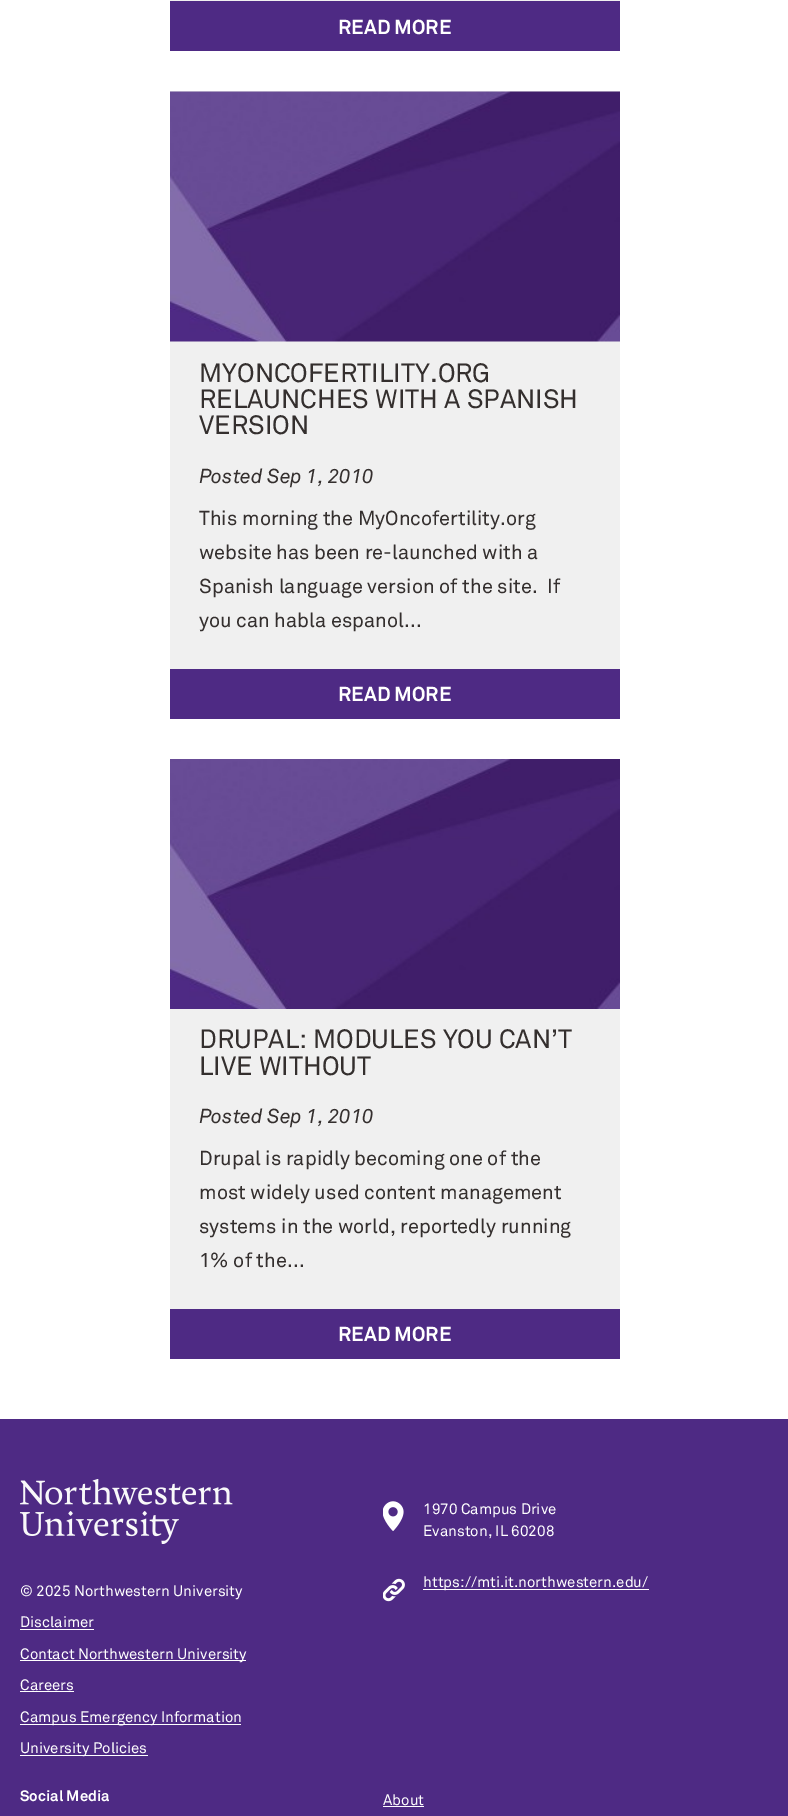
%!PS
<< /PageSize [788 1816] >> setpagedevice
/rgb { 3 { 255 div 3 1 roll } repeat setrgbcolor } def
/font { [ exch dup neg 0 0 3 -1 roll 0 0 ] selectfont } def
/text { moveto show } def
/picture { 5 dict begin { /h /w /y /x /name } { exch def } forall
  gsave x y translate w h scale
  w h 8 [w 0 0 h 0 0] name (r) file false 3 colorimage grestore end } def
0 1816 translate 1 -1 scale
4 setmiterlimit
255 255 255 rgb
0 0 788 1816 rectfill
240 240 240 rgb
170 0 450 1 rectfill
78 42 132 rgb
170 1 450 50 rectfill
240 240 240 rgb
170 91 450 578 rectfill
(img_01.rgb) 170 91 450 251 picture
78 42 132 rgb
170 669 450 50 rectfill
240 240 240 rgb
170 1009 450 300 rectfill
(img_02.rgb) 170 759 450 250 picture
78 42 132 rgb
170 1309 450 50 rectfill
0 1419 788 397 rectfill
(img_03.rgb) 383 1501 21 30 picture
(img_04.rgb) 383 1578 22 24 picture
255 255 255 rgb
423 1589 226 1 rectfill
(img_05.rgb) 20 1479 213 65 picture
20 1629 74 1 rectfill
20 1660 226 1 rectfill
20 1691 54 1 rectfill
20 1724 221 1 rectfill
20 1755 128 1 rectfill
383 1806 41 1 rectfill
/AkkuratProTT-Bold 20 font
(READ MORE) 338 34 text
/AkkuratProTT-Regular 26.25 font
52 47 46 rgb
(MYONCOFERTILITY.ORG) 199 382 text
(RELAUNCHES WITH A SPANISH) 199 408 text
(VERSION) 199 434 text
/AkkuratProTT-Italic 20 font
(Posted Sep 1, 2010) 199 483 text
/AkkuratProTT-Regular 20 font
(This morning the MyOncofertility.org) 199 525 text
(website has been re-launched with a) 199 559 text
(Spanish language version of the site.  If) 199 593 text
(you can habla espanol...) 199 627 text
/AkkuratProTT-Bold 20 font
255 255 255 rgb
(READ MORE) 338 701 text
/AkkuratProTT-Regular 26.25 font
52 47 46 rgb
(DRUPAL: MODULES YOU CAN’T) 199 1048 text
(LIVE WITHOUT) 199 1075 text
/AkkuratProTT-Italic 20 font
(Posted Sep 1, 2010) 199 1123 text
/AkkuratProTT-Regular 20 font
(Drupal is rapidly becoming one of the) 199 1165 text
(most widely used content management) 199 1199 text
(systems in the world, reportedly running) 199 1233 text
(1% of the...) 199 1267 text
/AkkuratProTT-Bold 20 font
255 255 255 rgb
(READ MORE) 338 1341 text
/AkkuratProTT-Regular 15 font
(1970 Campus Drive) 423 1514 text
(Evanston, IL 60208) 423 1536 text
(https://mti.it.northwestern.edu/) 423 1587 text
(© 2025 Northwestern University) 20 1596 text
(Disclaimer) 20 1627 text
(Contact Northwestern University) 20 1659 text
(Careers) 20 1690 text
(Campus Emergency Information) 20 1722 text
(University Policies) 20 1753 text
/AkkuratProTT-Bold 15 font
(Social Media) 20 1801 text
/AkkuratProTT-Regular 15 font
(About) 383 1805 text
showpage
